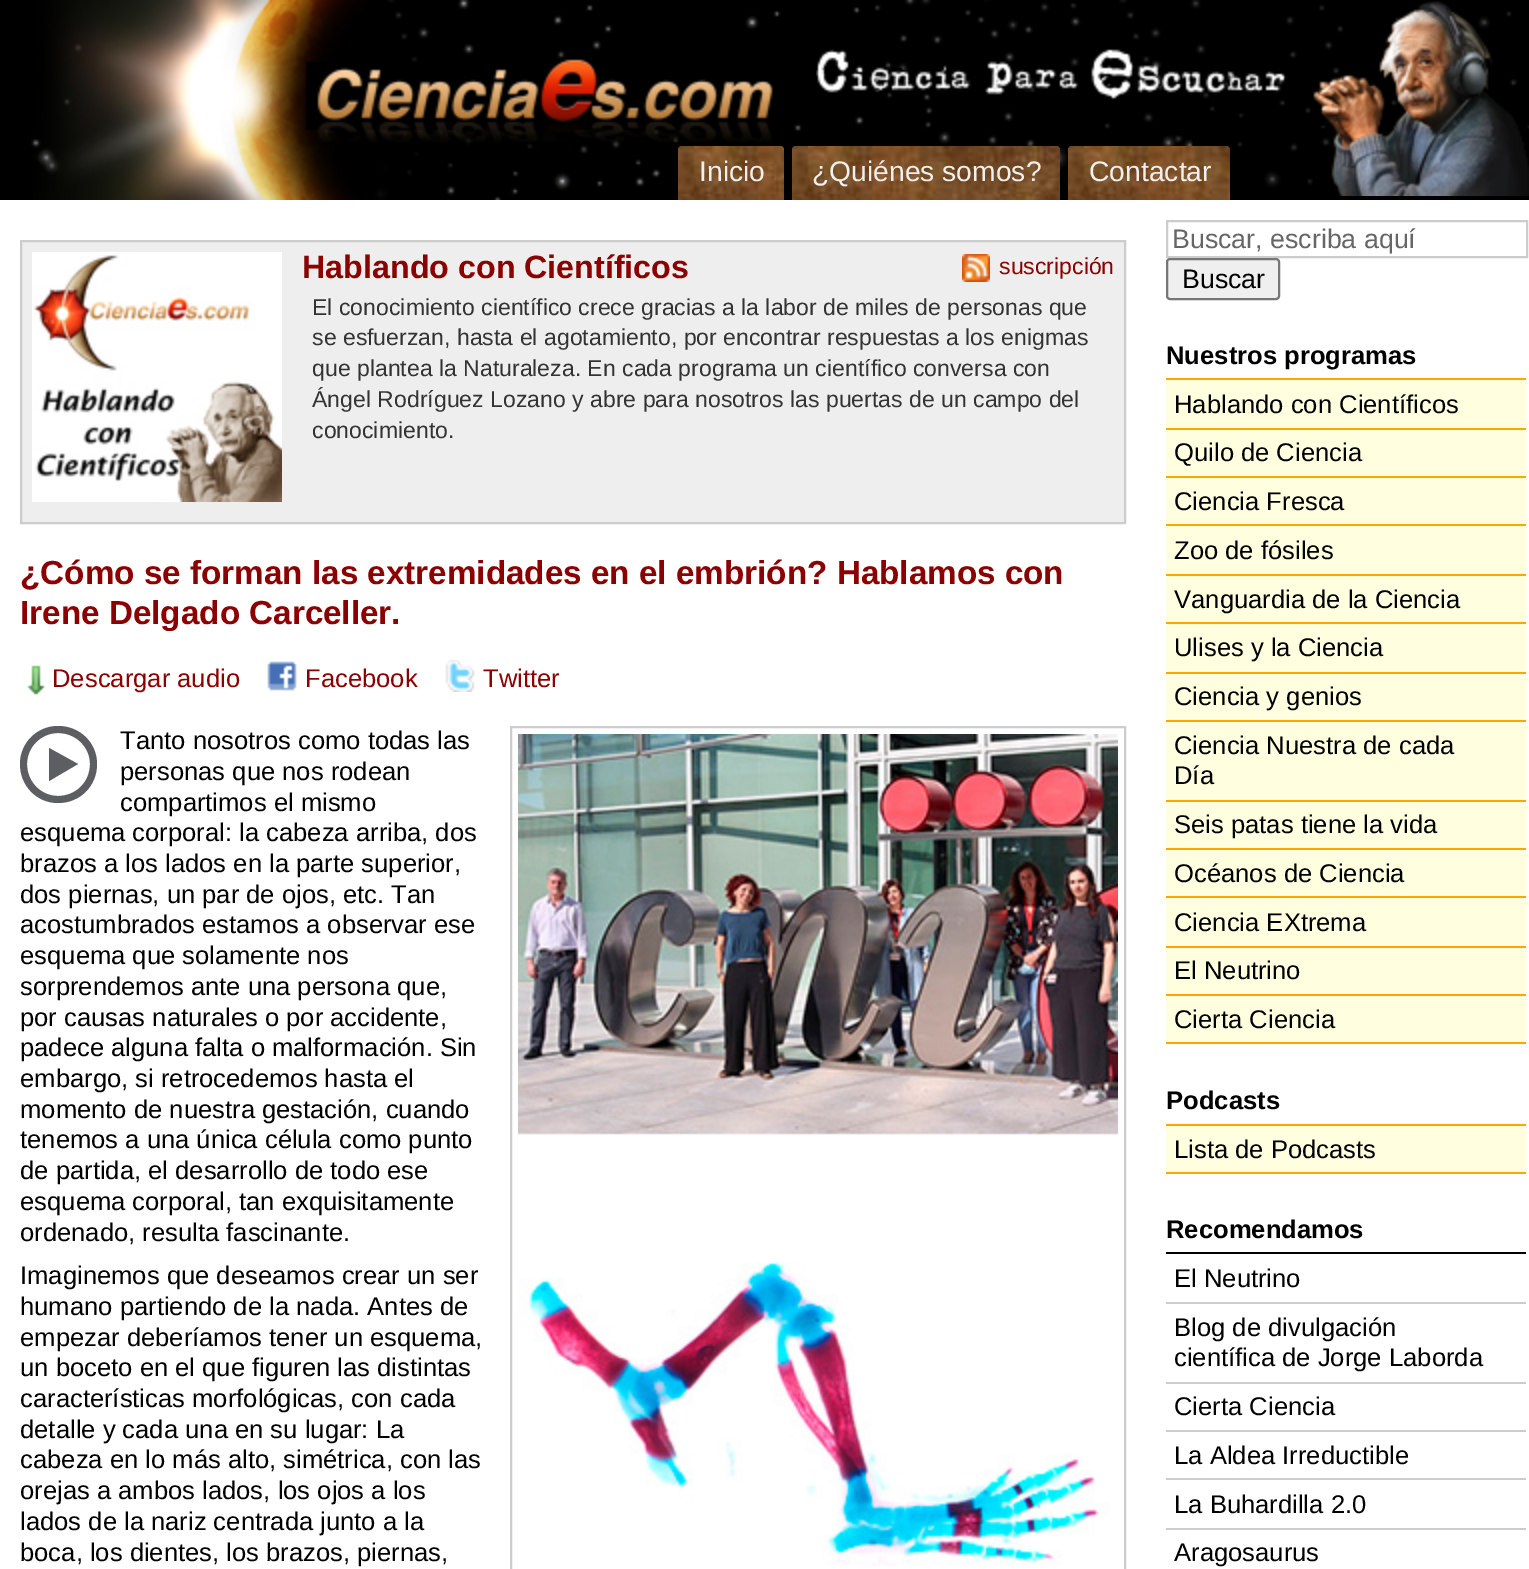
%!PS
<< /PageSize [1529 1569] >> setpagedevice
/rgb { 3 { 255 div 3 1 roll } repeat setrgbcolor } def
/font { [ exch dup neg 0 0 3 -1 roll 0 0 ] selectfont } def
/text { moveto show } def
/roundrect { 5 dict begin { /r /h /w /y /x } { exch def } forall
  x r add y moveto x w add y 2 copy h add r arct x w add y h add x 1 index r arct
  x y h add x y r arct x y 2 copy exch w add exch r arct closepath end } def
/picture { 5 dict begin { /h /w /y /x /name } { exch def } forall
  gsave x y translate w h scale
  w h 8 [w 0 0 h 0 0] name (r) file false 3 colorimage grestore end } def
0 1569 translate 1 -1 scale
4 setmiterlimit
255 255 255 rgb
0 0 1529 1569 rectfill
0 0 0 rgb
0 0 31 200 rectfill
(img_01.rgb) 31 0 1498 200 picture
(img_02.rgb) 816 1 713 195 picture
(img_03.rgb) 678 146 106 54 picture
(img_04.rgb) 792 146 268 54 picture
(img_05.rgb) 1068 146 162 54 picture
238 238 238 rgb
21 241 moveto 1104 0 rlineto 0 282 rlineto -1104 0 rlineto closepath gsave fill grestore
204 204 204 rgb
2 setlinewidth
stroke
(img_06.rgb) 32 252 250 250 picture
(img_07.rgb) 962 254 28 28 picture
(img_08.rgb) 27 665 18 30 picture
(img_09.rgb) 267 661 30 30 picture
(img_10.rgb) 445 660 30 32 picture
93 94 98 rgb
58 726 moveto -21 0 -38 17 -38 38 rcurveto 0 22 17 39 38 39 rcurveto 22 0 39 -17 39 -39 rcurveto 0 -21 -17 -38 -39 -38 rcurveto closepath 58 796 moveto -17 0 -31 -14 -31 -32 rcurveto 0 -17 14 -31 31 -31 rcurveto 18 0 32 14 32 31 rcurveto 0 18 -14 32 -32 32 rcurveto closepath 49 748 moveto 29 16 rlineto -29 17 rlineto closepath fill
204 204 204 rgb
511 727 614 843 rectstroke
(img_11.rgb) 518 734 600 832 picture
1167 221 360 36 rectstroke
239 239 239 rgb
1167 259 112 40 3 roundrect gsave fill grestore
118 118 118 rgb
stroke
255 165 0 rgb
1166 378 360 2 rectfill
1166 428 360 2 rectfill
255 255 224 rgb
1166 380 360 48 rectfill
255 165 0 rgb
1166 476 360 2 rectfill
255 255 224 rgb
1166 430 360 46 rectfill
255 165 0 rgb
1166 524 360 2 rectfill
255 255 224 rgb
1166 478 360 46 rectfill
255 165 0 rgb
1166 574 360 2 rectfill
255 255 224 rgb
1166 526 360 48 rectfill
255 165 0 rgb
1166 622 360 2 rectfill
255 255 224 rgb
1166 576 360 46 rectfill
255 165 0 rgb
1166 672 360 2 rectfill
255 255 224 rgb
1166 624 360 48 rectfill
255 165 0 rgb
1166 720 360 2 rectfill
255 255 224 rgb
1166 674 360 46 rectfill
255 165 0 rgb
1166 800 360 2 rectfill
255 255 224 rgb
1166 722 360 78 rectfill
255 165 0 rgb
1166 848 360 2 rectfill
255 255 224 rgb
1166 802 360 46 rectfill
255 165 0 rgb
1166 896 360 2 rectfill
255 255 224 rgb
1166 850 360 46 rectfill
255 165 0 rgb
1166 946 360 2 rectfill
255 255 224 rgb
1166 898 360 48 rectfill
255 165 0 rgb
1166 994 360 2 rectfill
255 255 224 rgb
1166 948 360 46 rectfill
255 165 0 rgb
1166 1042 360 2 rectfill
255 255 224 rgb
1166 996 360 46 rectfill
255 165 0 rgb
1166 1124 360 2 rectfill
1166 1172 360 2 rectfill
255 255 224 rgb
1166 1126 360 46 rectfill
0 0 0 rgb
1166 1252 360 2 rectfill
204 204 204 rgb
1166 1302 360 2 rectfill
1166 1382 360 2 rectfill
1166 1430 360 2 rectfill
1166 1478 360 2 rectfill
1166 1528 360 2 rectfill
/LiberationSans-Regular 28.25 font
240 240 240 rgb
(Inicio) 699 181 text
(¿Quiénes somos?) 812 181 text
(Contactar) 1089 181 text
/LiberationSans-Bold 32.25 font
139 0 0 rgb
(Hablando con Científicos) 302 278 text
/LiberationSans-Regular 23.05 font
(suscripción) 999 274 text
51 51 51 rgb
(El conocimiento científico crece gracias a la labor de miles de personas que) 312 315 text
(se esfuerzan, hasta el agotamiento, por encontrar respuestas a los enigmas) 312 345 text
(que plantea la Naturaleza. En cada programa un científico conversa con) 312 376 text
(Ángel Rodríguez Lozano y abre para nosotros las puertas de un campo del) 312 407 text
(conocimiento.) 312 438 text
/LiberationSans-Bold 33.25 font
139 0 0 rgb
(¿Cómo se forman las extremidades en el embrión? Hablamos con) 20 584 text
(Irene Delgado Carceller.) 20 624 text
/LiberationSans-Regular 25.6 font
(Descargar audio) 52 687 text
(Facebook) 305 687 text
(Twitter) 483 687 text
0 0 0 rgb
(Tanto nosotros como todas las) 120 749 text
(personas que nos rodean) 120 780 text
(compartimos el mismo) 120 811 text
(esquema corporal: la cabeza arriba, dos) 20 841 text
(brazos a los lados en la parte superior,) 20 872 text
(dos piernas, un par de ojos, etc. Tan) 20 903 text
(acostumbrados estamos a observar ese) 20 933 text
(esquema que solamente nos) 20 964 text
(sorprendemos ante una persona que,) 20 995 text
(por causas naturales o por accidente,) 20 1026 text
(padece alguna falta o malformación. Sin) 20 1056 text
(embargo, si retrocedemos hasta el) 20 1087 text
(momento de nuestra gestación, cuando) 20 1118 text
(tenemos a una única célula como punto) 20 1148 text
(de partida, el desarrollo de todo ese) 20 1179 text
(esquema corporal, tan exquisitamente) 20 1210 text
(ordenado, resulta fascinante.) 20 1241 text
(Imaginemos que deseamos crear un ser) 20 1284 text
(humano partiendo de la nada. Antes de) 20 1315 text
(empezar deberíamos tener un esquema,) 20 1346 text
(un boceto en el que figuren las distintas) 20 1376 text
(características morfológicas, con cada) 20 1407 text
(detalle y cada una en su lugar: La) 20 1438 text
(cabeza en lo más alto, simétrica, con las) 20 1468 text
(orejas a ambos lados, los ojos a los) 20 1499 text
(lados de la nariz centrada junto a la) 20 1530 text
(boca, los dientes, los brazos, piernas,) 20 1561 text
/LiberationSans-Regular 26.75 font
102 102 102 rgb
(Buscar, escriba aquí) 1172 248 text
0 0 0 rgb
(Buscar) 1182 288 text
/LiberationSans-Bold 25.6 font
(Nuestros programas) 1166 364 text
/LiberationSans-Regular 25.6 font
(Hablando con Científicos) 1174 413 text
(Quilo de Ciencia) 1174 461 text
(Ciencia Fresca) 1174 510 text
(Zoo de fósiles) 1174 559 text
(Vanguardia de la Ciencia) 1174 608 text
(Ulises y la Ciencia) 1174 656 text
(Ciencia y genios) 1174 705 text
(Ciencia Nuestra de cada) 1174 754 text
(Día) 1174 784 text
(Seis patas tiene la vida) 1174 833 text
(Océanos de Ciencia) 1174 882 text
(Ciencia EXtrema) 1174 931 text
(El Neutrino) 1174 979 text
(Cierta Ciencia) 1174 1028 text
/LiberationSans-Bold 25.6 font
(Podcasts) 1166 1109 text
/LiberationSans-Regular 25.6 font
(Lista de Podcasts) 1174 1158 text
/LiberationSans-Bold 25.6 font
(Recomendamos) 1166 1238 text
/LiberationSans-Regular 25.6 font
(El Neutrino) 1174 1287 text
(Blog de divulgación) 1174 1336 text
(científica de Jorge Laborda) 1174 1366 text
(Cierta Ciencia) 1174 1415 text
(La Aldea Irreductible) 1174 1464 text
(La Buhardilla 2.0) 1174 1513 text
(Aragosaurus) 1174 1561 text
showpage
